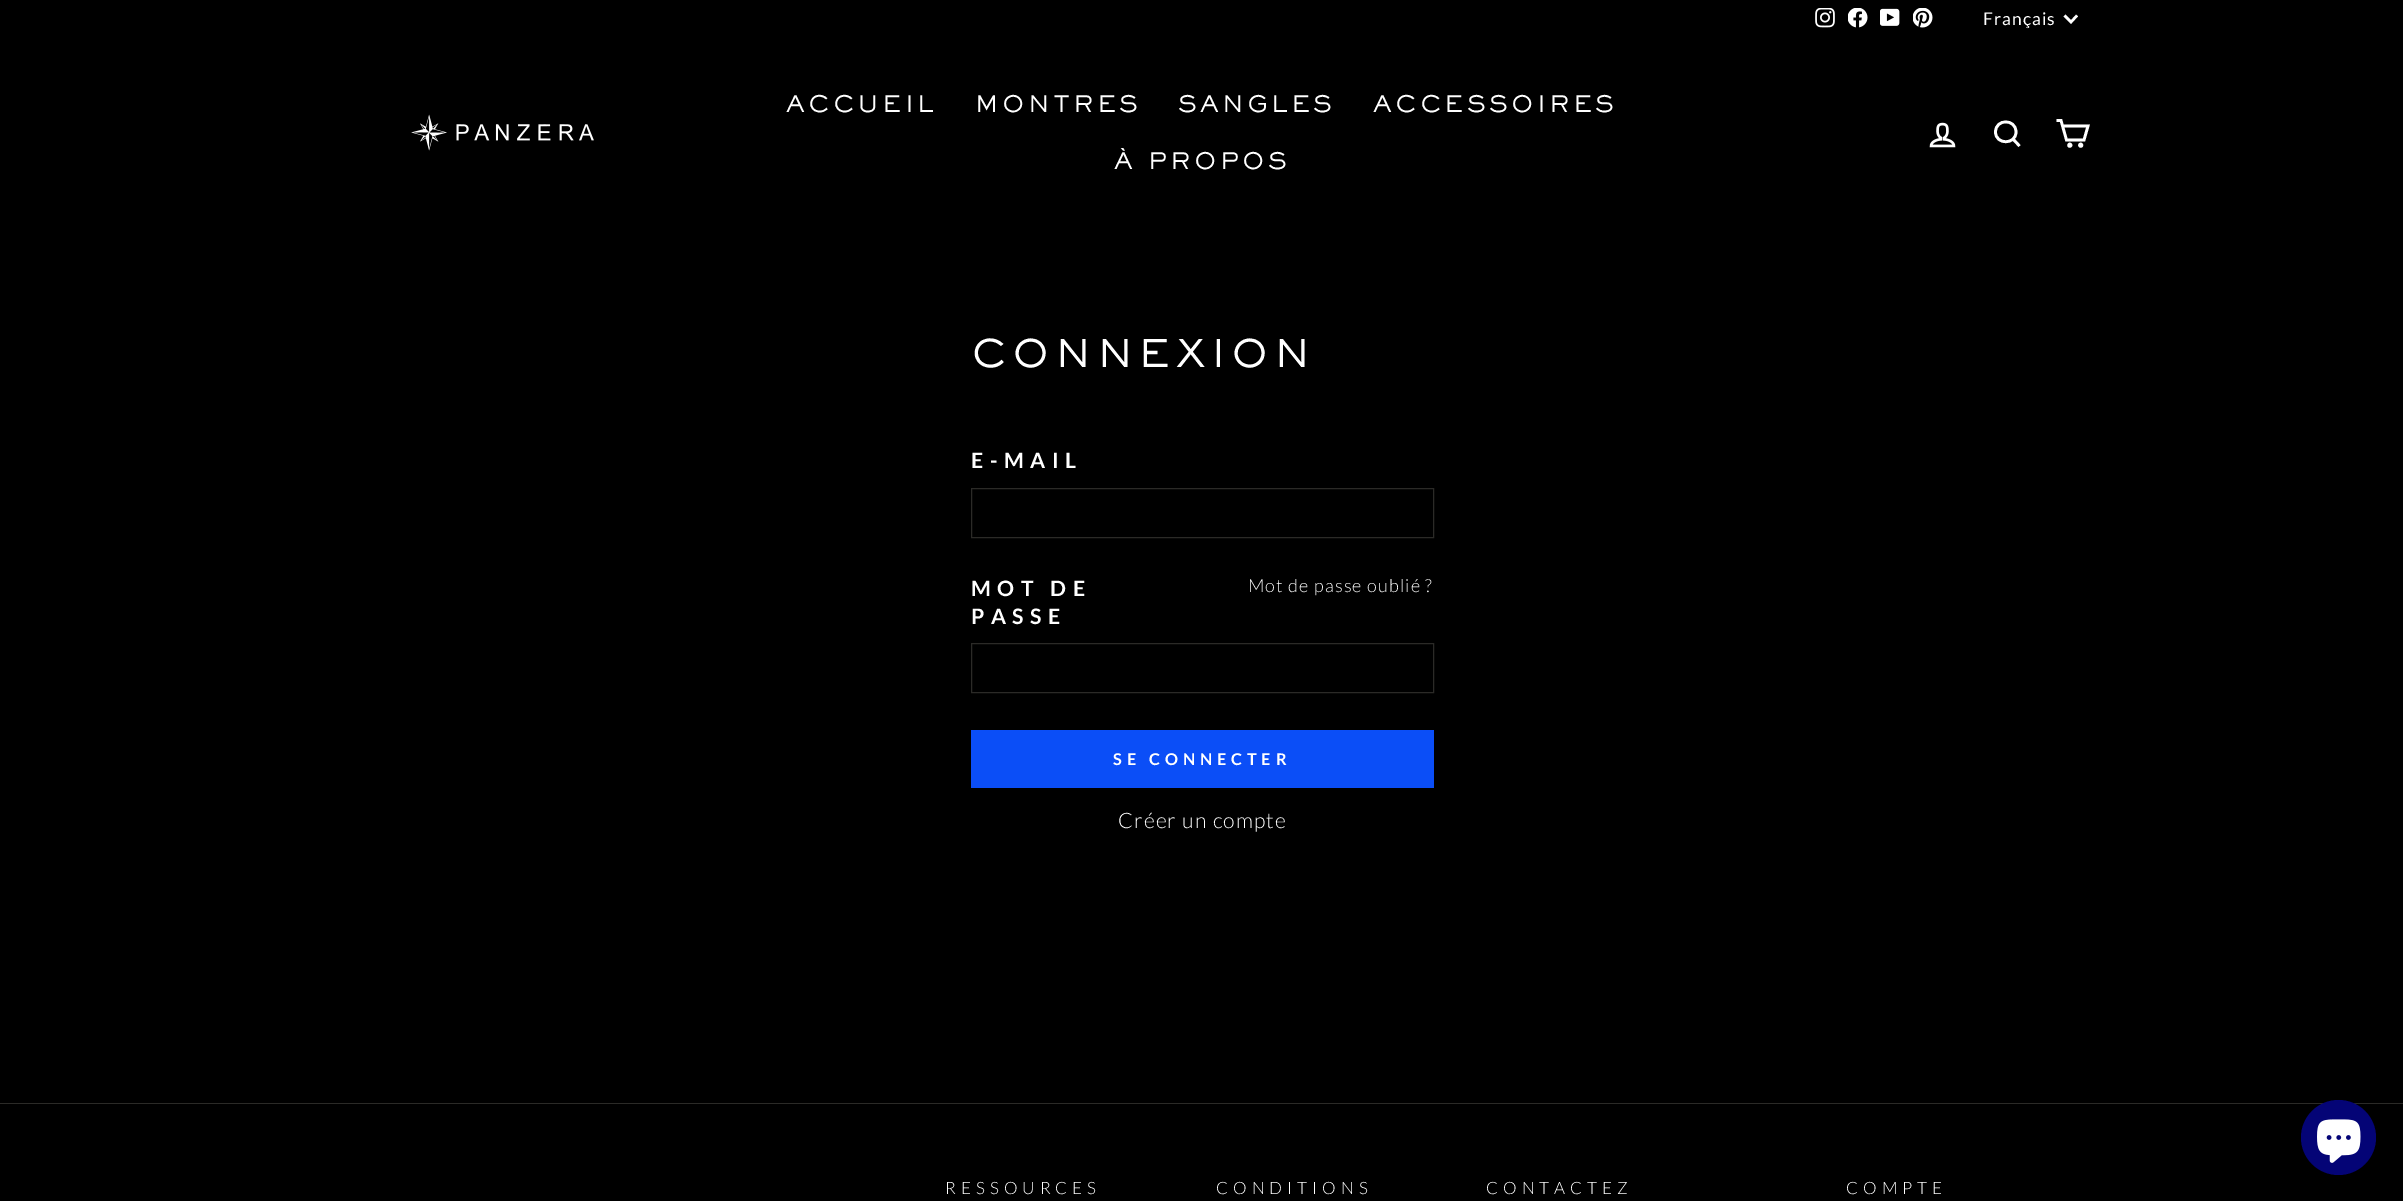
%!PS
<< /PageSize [2403 1201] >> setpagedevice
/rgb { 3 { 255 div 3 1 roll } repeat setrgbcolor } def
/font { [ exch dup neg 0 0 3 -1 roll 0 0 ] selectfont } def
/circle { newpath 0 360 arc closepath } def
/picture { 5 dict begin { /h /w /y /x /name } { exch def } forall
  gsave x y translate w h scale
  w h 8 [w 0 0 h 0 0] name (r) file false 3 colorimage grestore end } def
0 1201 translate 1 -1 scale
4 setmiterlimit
0 0 0 rgb
0 0 2403 1201 rectfill
(img_01.rgb) 1815 8 20 20 picture
(img_02.rgb) 1848 8 20 20 picture
(img_03.rgb) 1880 8 20 18 picture
(img_04.rgb) 1913 8 20 20 picture
255 255 255 rgb
2.5 setlinewidth
2064.5 15.5 moveto 6.5 6.5 rlineto 6 -6.5 rlineto stroke
(img_05.rgb) 411 114 183 37 picture
(img_06.rgb) 1929 122 27 26 picture
2.7 setlinewidth
2016 132 moveto 0 13 -20.5 13 -20.5 0 rcurveto 0 -13.5 20.5 -13.5 20.5 0 rcurveto closepath 2019.5 146 moveto -6.5 -7 rlineto stroke
2062.5 126 moveto 25.5 0 rlineto -4 14 rlineto -17.5 0 rlineto -5.5 -19.5 rlineto -4.5 0 rlineto stroke
2069.8 145.2 1.1 circle stroke
2080.7 145.2 1.1 circle stroke
43 42 39 rgb
1 setlinewidth
971.5 488.5 462 49 rectstroke
971.5 643.5 462 49 rectstroke
11 78 247 rgb
971 730 463 58 rectfill
43 42 39 rgb
0 1103 2403 1 rectfill
4 4 118 rgb
2338.5 1137.5 37.5 circle fill
(img_07.rgb) 2317 1119 44 44 picture
/Lato-Regular 17.5 font
255 255 255 rgb
1983 25 moveto 1 0 (Français) ashow
/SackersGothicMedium-Medium 22.5 font
786 112 moveto 3.4 0 (ACCUEIL) ashow
975 112 moveto 3.4 0 (MONTRES) ashow
1178 112 moveto 3.4 0 (SANGLES) ashow
1373 112 moveto 3.4 0 (ACCESSOIRES) ashow
1114 169 moveto 3.4 0 (À PROPOS) ashow
/SackersGothicMedium-Medium 37.5 font
971 367 moveto 5.6 0 (CONNEXION) ashow
/Lato-Bold 21.25 font
971 468 moveto 6.5 0 (E-MAIL) ashow
971 596 moveto 6.5 0 (MOT DE) ashow
971 624 moveto 6.5 0 (PASSE) ashow
/Lato-Light 18 font
1248 592 moveto 1.1 0 (Mot de passe oublié ?) ashow
/Lato-Bold 16.25 font
1113 765 moveto 4.9 0 (SE CONNECTER) ashow
/Lato-Light 21.25 font
1118 828 moveto 1.1 0 (Créer un compte) ashow
/Lato-Light 17 font
945 1194 moveto 5 0 (RESSOURCES) ashow
1216 1194 moveto 5 0 (CONDITIONS) ashow
1486 1194 moveto 5 0 (CONTACTEZ) ashow
1846 1194 moveto 5 0 (COMPTE) ashow
showpage
